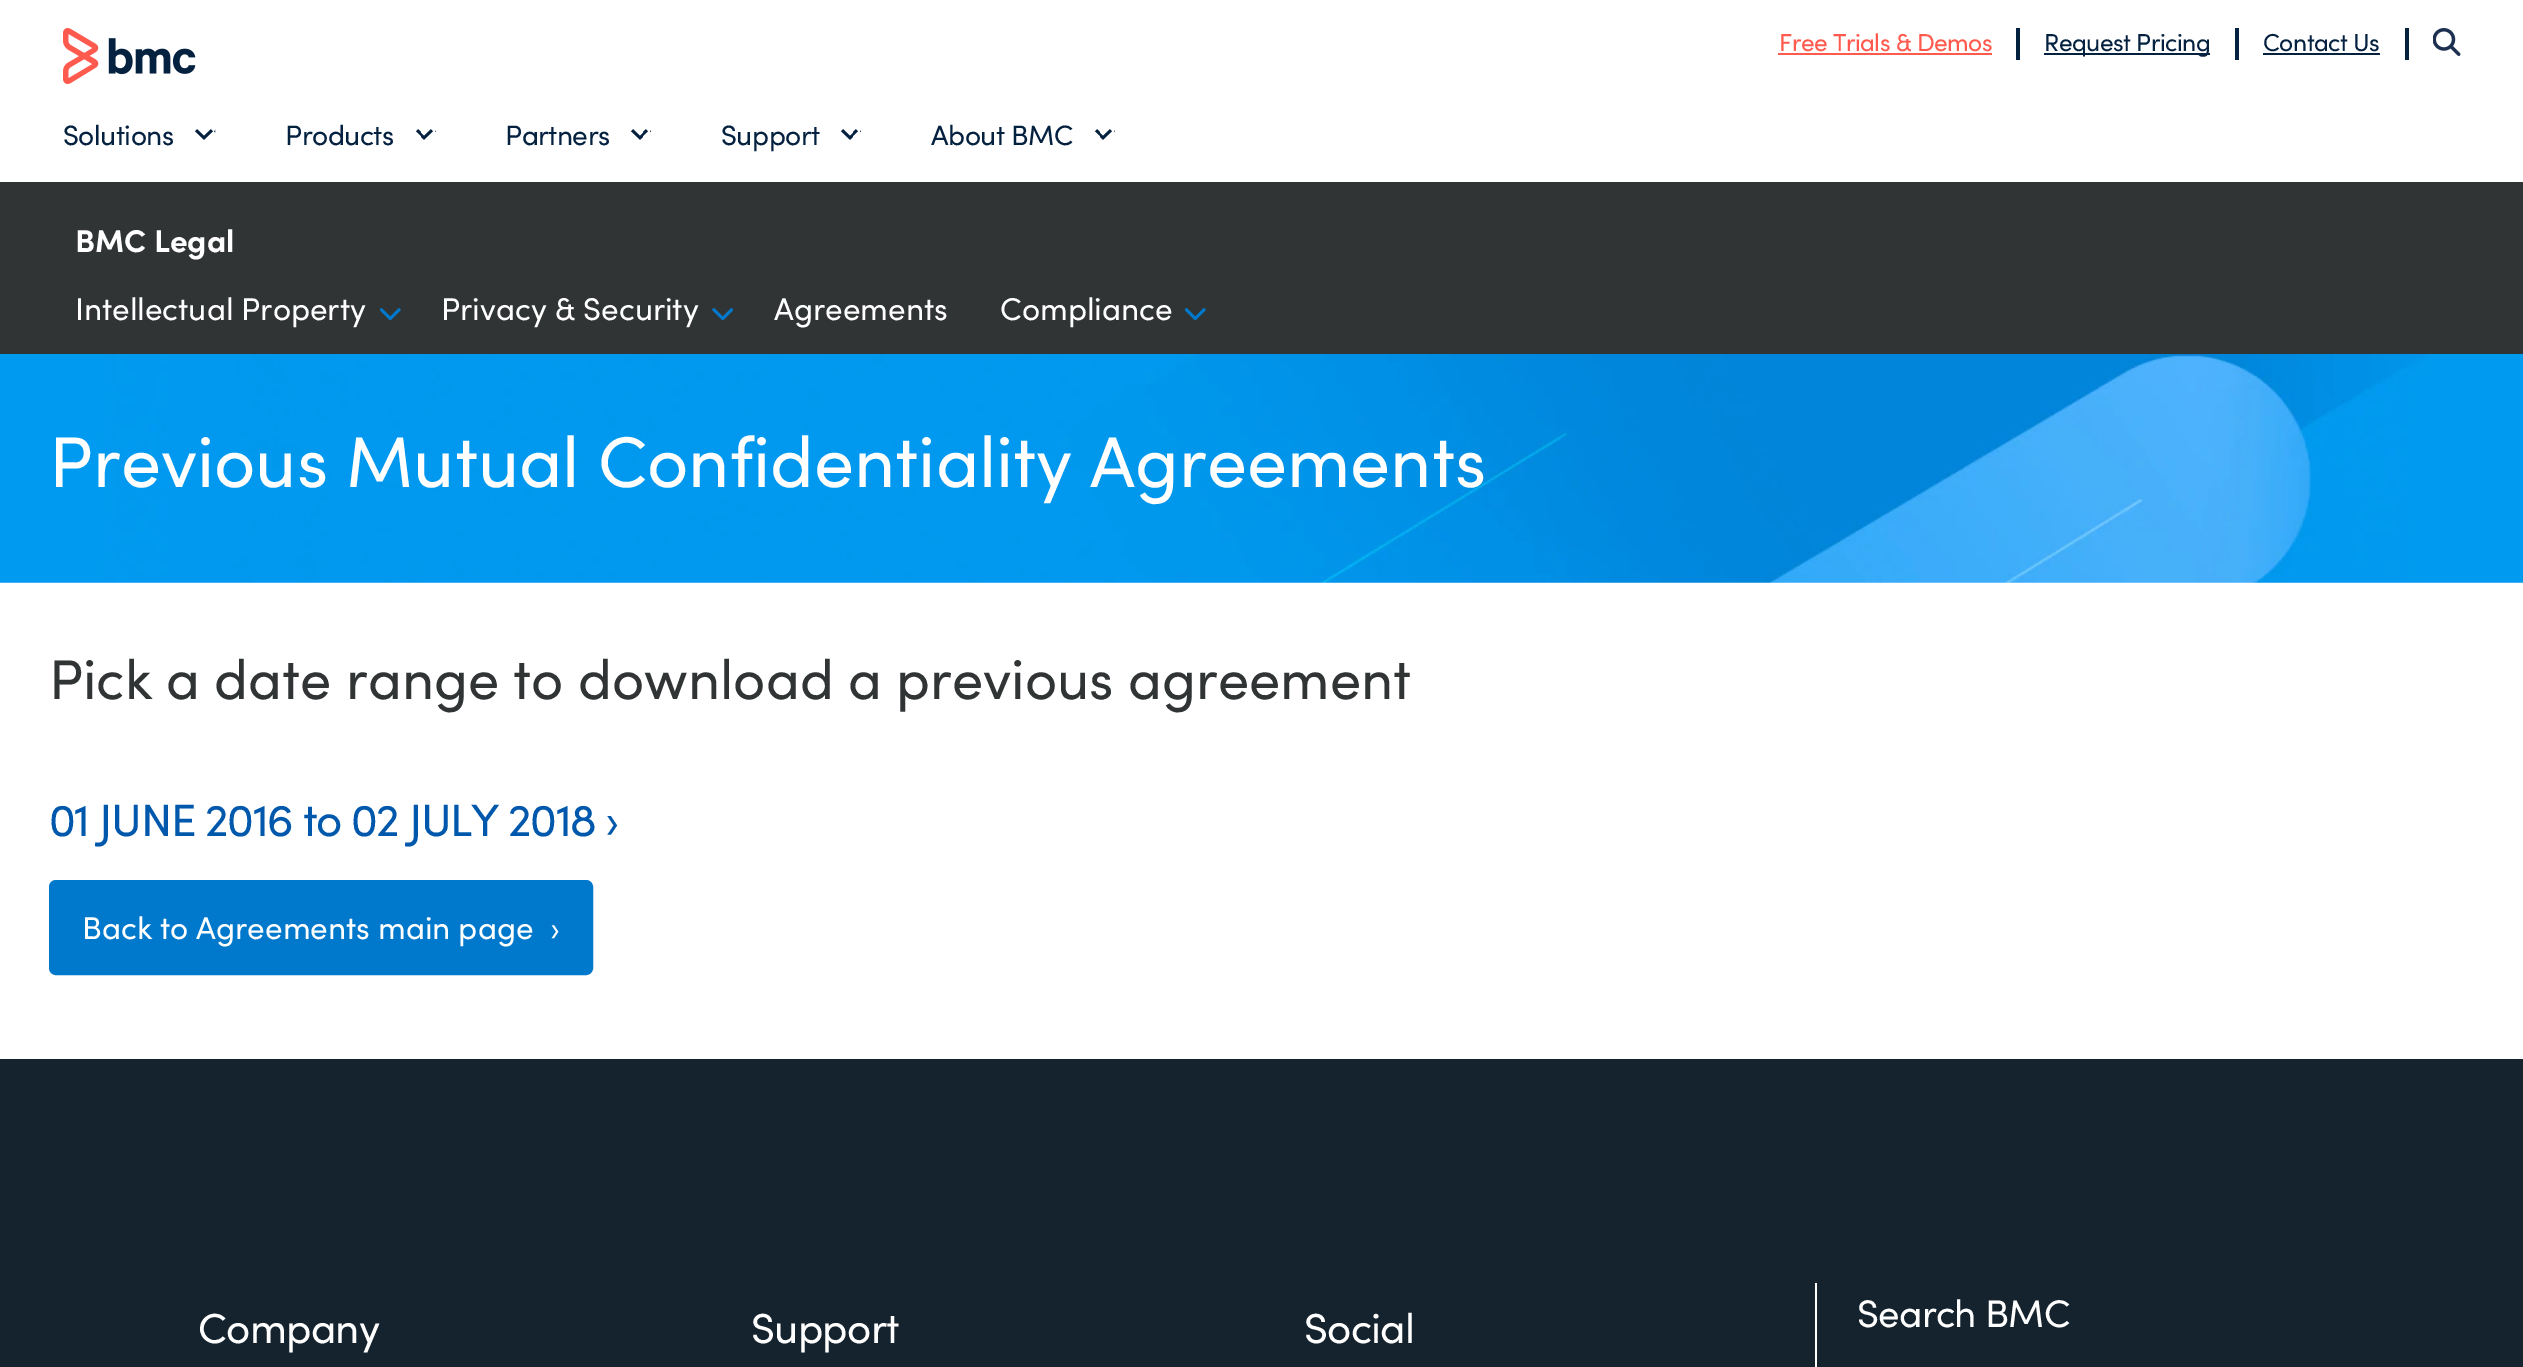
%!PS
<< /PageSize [2523 1367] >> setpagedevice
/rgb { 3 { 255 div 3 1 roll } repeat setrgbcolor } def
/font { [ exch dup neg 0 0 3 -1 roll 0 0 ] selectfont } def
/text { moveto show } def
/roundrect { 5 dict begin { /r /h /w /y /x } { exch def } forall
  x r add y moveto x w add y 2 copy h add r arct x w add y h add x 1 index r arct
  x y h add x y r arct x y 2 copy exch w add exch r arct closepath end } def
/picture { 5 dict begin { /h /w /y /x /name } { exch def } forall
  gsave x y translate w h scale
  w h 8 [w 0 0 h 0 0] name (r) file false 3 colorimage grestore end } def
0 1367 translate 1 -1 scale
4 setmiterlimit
255 255 255 rgb
0 0 2523 1367 rectfill
(img_01.rgb) 63 28 133 56 picture
5 33 64 rgb
2016 28 4 32 rectfill
255 90 77 rgb
1778 53 214 2 rectfill
5 33 64 rgb
2235 28 4 32 rectfill
2044 53 166 2 rectfill
2405 28 4 32 rectfill
2263 53 117 2 rectfill
(img_02.rgb) 2433 28 28 28 picture
(img_03.rgb) 195 129 21 11 picture
(img_04.rgb) 416 129 20 11 picture
(img_05.rgb) 631 129 20 11 picture
(img_05.rgb) 841 129 20 11 picture
(img_04.rgb) 1095 129 20 11 picture
49 52 53 rgb
0 182 2523 172 rectfill
(img_06.rgb) 380 308 21 12 picture
(img_07.rgb) 712 308 21 12 picture
(img_06.rgb) 1185 308 21 12 picture
(img_08.rgb) 0 354 2523 229 picture
0 120 204 rgb
50 881 542 93 6 roundrect gsave fill grestore
2 setlinewidth
stroke
21 35 46 rgb
0 1059 2523 308 rectfill
255 255 255 rgb
1815 1283 2 84 rectfill
/Sofia-Regular 24.5 font
255 90 77 rgb
1779 51 moveto -0.5 0 (Free Trials & Demos) ashow
5 33 64 rgb
2044 51 moveto -0.5 0 (Request Pricing) ashow
2263 51 moveto -0.5 0 (Contact Us) ashow
/Sofia-Regular 28 font
63 145 moveto -0.5 0 (Solutions) ashow
285 145 moveto -0.5 0 (Products) ashow
505 145 moveto -0.5 0 (Partners) ashow
721 145 moveto -0.5 0 (Support) ashow
931 145 moveto -0.5 0 (About BMC) ashow
/Sofia-Bold 31.5 font
255 255 255 rgb
(BMC Legal) 75 252 text
/Sofia-Regular 31.5 font
(Intellectual Property) 75 320 text
(Privacy & Security) 441 320 text
(Agreements) 774 320 text
(Compliance) 1000 320 text
/Sofia-Regular 71.75 font
(Previous Mutual Confidentiality Agreements) 49 487 text
/Sofia-Regular 56 font
49 52 53 rgb
(Pick a date range to download a previous agreement) 49 699 text
/Sofia-Regular 45.5 font
0 88 172 rgb
49 836 moveto -1.35 0 (01 JUNE 2016 to 02 JULY 2018) ashow
605 836 moveto -1.35 0 (›) ashow
/Sofia-Regular 31.5 font
255 255 255 rgb
(Back to Agreements main page) 82 939 text
(›) 550 939 text
/Sofia-Regular 42 font
198 1343 moveto -0.75 0 (Company) ashow
751 1343 moveto -0.75 0 (Support) ashow
1304 1343 moveto -0.75 0 (Social) ashow
/Sofia-Regular 38.5 font
1857 1327 moveto -0.75 0 (Search BMC) ashow
showpage
